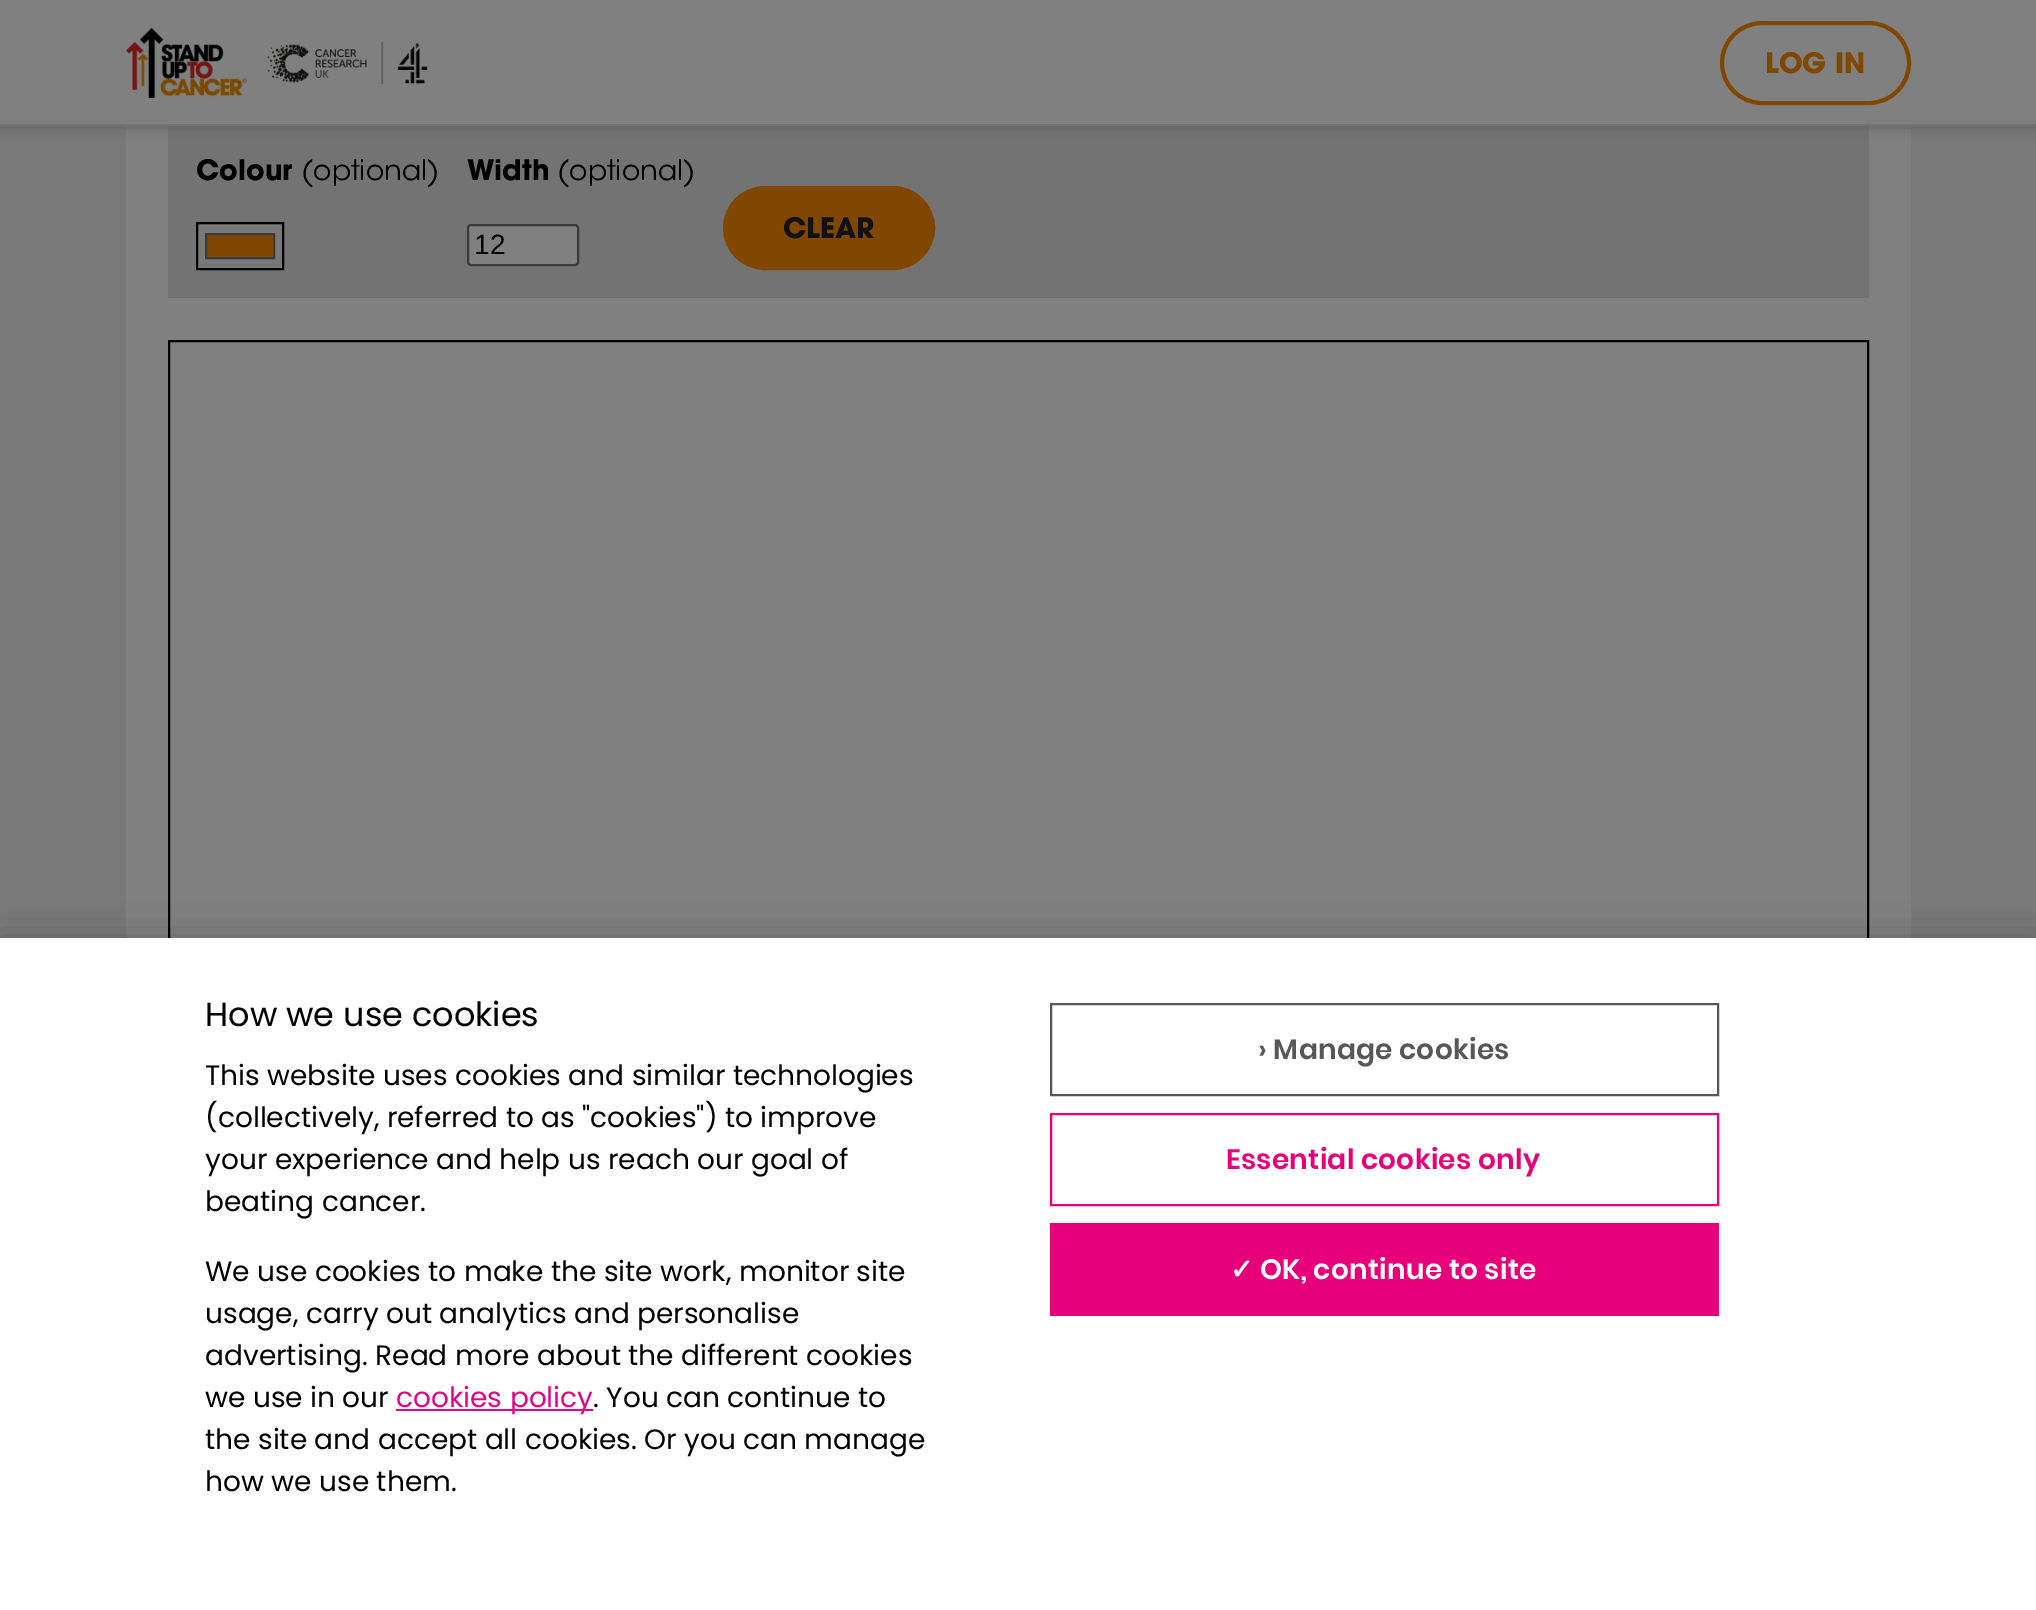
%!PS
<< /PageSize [2036 1610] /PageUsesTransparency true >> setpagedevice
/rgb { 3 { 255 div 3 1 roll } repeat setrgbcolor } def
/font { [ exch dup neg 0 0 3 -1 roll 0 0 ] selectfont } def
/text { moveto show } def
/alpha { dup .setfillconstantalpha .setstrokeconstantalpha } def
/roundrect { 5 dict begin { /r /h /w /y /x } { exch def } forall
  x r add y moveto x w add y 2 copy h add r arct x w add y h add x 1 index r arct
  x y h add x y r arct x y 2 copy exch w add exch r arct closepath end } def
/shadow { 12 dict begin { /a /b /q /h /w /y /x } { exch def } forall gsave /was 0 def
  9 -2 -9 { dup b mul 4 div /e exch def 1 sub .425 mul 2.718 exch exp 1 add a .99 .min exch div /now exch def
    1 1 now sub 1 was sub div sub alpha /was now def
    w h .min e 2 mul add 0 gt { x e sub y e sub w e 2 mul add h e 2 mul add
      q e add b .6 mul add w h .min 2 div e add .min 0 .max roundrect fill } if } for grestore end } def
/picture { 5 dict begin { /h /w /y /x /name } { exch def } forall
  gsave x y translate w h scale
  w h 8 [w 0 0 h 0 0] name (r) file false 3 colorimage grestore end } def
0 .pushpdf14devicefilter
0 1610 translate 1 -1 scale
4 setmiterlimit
121 121 121 rgb
0 0 2036 1610 rectfill
128 128 128 rgb
126 126 1785 812 rectfill
115 115 115 rgb
168 126 1701 172 rectfill
99 99 99 rgb
-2 -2 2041 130 0 6 1 shadow
128 128 128 rgb
0 0 2036 124 rectfill
115 115 115 rgb
0 124 2036 2 rectfill
(img_01.rgb) 126 28 302 70 picture
128 71 0 rgb
4 setlinewidth
1722 23 187 80 40 roundrect stroke
120 120 120 rgb
197 223 moveto 86 0 rlineto 0 46 rlineto -86 0 rlineto closepath gsave fill grestore
0 0 0 rgb
2 setlinewidth
stroke
128 71 0 rgb
206 234 moveto 68 0 rlineto 0 24 rlineto -68 0 rlineto closepath gsave fill grestore
60 60 60 rgb
stroke
128 128 128 rgb
468 225 110 40 3 roundrect gsave fill grestore
59 59 59 rgb
stroke
128 71 0 rgb
725 188 208 80 40 roundrect gsave fill grestore
4 setlinewidth
stroke
0 0 0 rgb
2 setlinewidth
169 341 1699 803 rectstroke
0 938 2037 672 0 16 0.2 shadow
255 255 255 rgb
0 938 2036 672 rectfill
228 0 135 rgb
396 1409 197 2 rectfill
87 87 87 rgb
1051 1004 667 91 rectstroke
230 0 121 rgb
1051 1114 667 91 rectstroke
1050 1223 669 93 rectfill
/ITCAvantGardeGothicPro-Bold 28 font
128 71 0 rgb
(LOG IN) 1765 73 text
0 0 0 rgb
(Colour) 196 180 text
/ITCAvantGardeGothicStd-Light 28 font
(\(optional\)) 301 180 text
/ITCAvantGardeGothicPro-Bold 28 font
(Width) 467 180 text
/ITCAvantGardeGothicStd-Light 28 font
(\(optional\)) 557 180 text
/LiberationSans-Regular 28 font
(12) 474 254 text
/ITCAvantGardeGothicPro-Bold 28 font
18 16 16 rgb
(CLEAR) 783 238 text
/Poppins-Regular 33.5 font
0 0 0 rgb
(How we use cookies) 205 1026 text
/Poppins-Regular 28 font
(This website uses cookies and similar technologies) 205 1085 text
(\(collectively, referred to as "cookies"\) to improve) 205 1127 text
(your experience and help us reach our goal of) 205 1169 text
(beating cancer.) 205 1211 text
(We use cookies to make the site work, monitor site) 205 1281 text
(usage, carry out analytics and personalise) 205 1323 text
(advertising. Read more about the different cookies) 205 1365 text
(we use in our) 205 1407 text
228 0 135 rgb
(cookies policy) 396 1407 text
0 0 0 rgb
(. You can continue to) 593 1407 text
(the site and accept all cookies. Or you can manage) 205 1449 text
(how we use them.) 205 1491 text
/Poppins-SemiBold 28 font
87 87 87 rgb
1258 1059 moveto 0.25 0 (› Manage cookies) ashow
230 0 121 rgb
1226 1169 moveto 0.25 0 (Essential cookies only) ashow
/DejaVuSans-Bold 28 font
255 255 255 rgb
1230 1279 moveto 0.25 0 (✓) ashow
/Poppins-SemiBold 28 font
1260 1279 moveto 0.25 0 (OK, continue to site) ashow
.poppdf14devicefilter showpage
